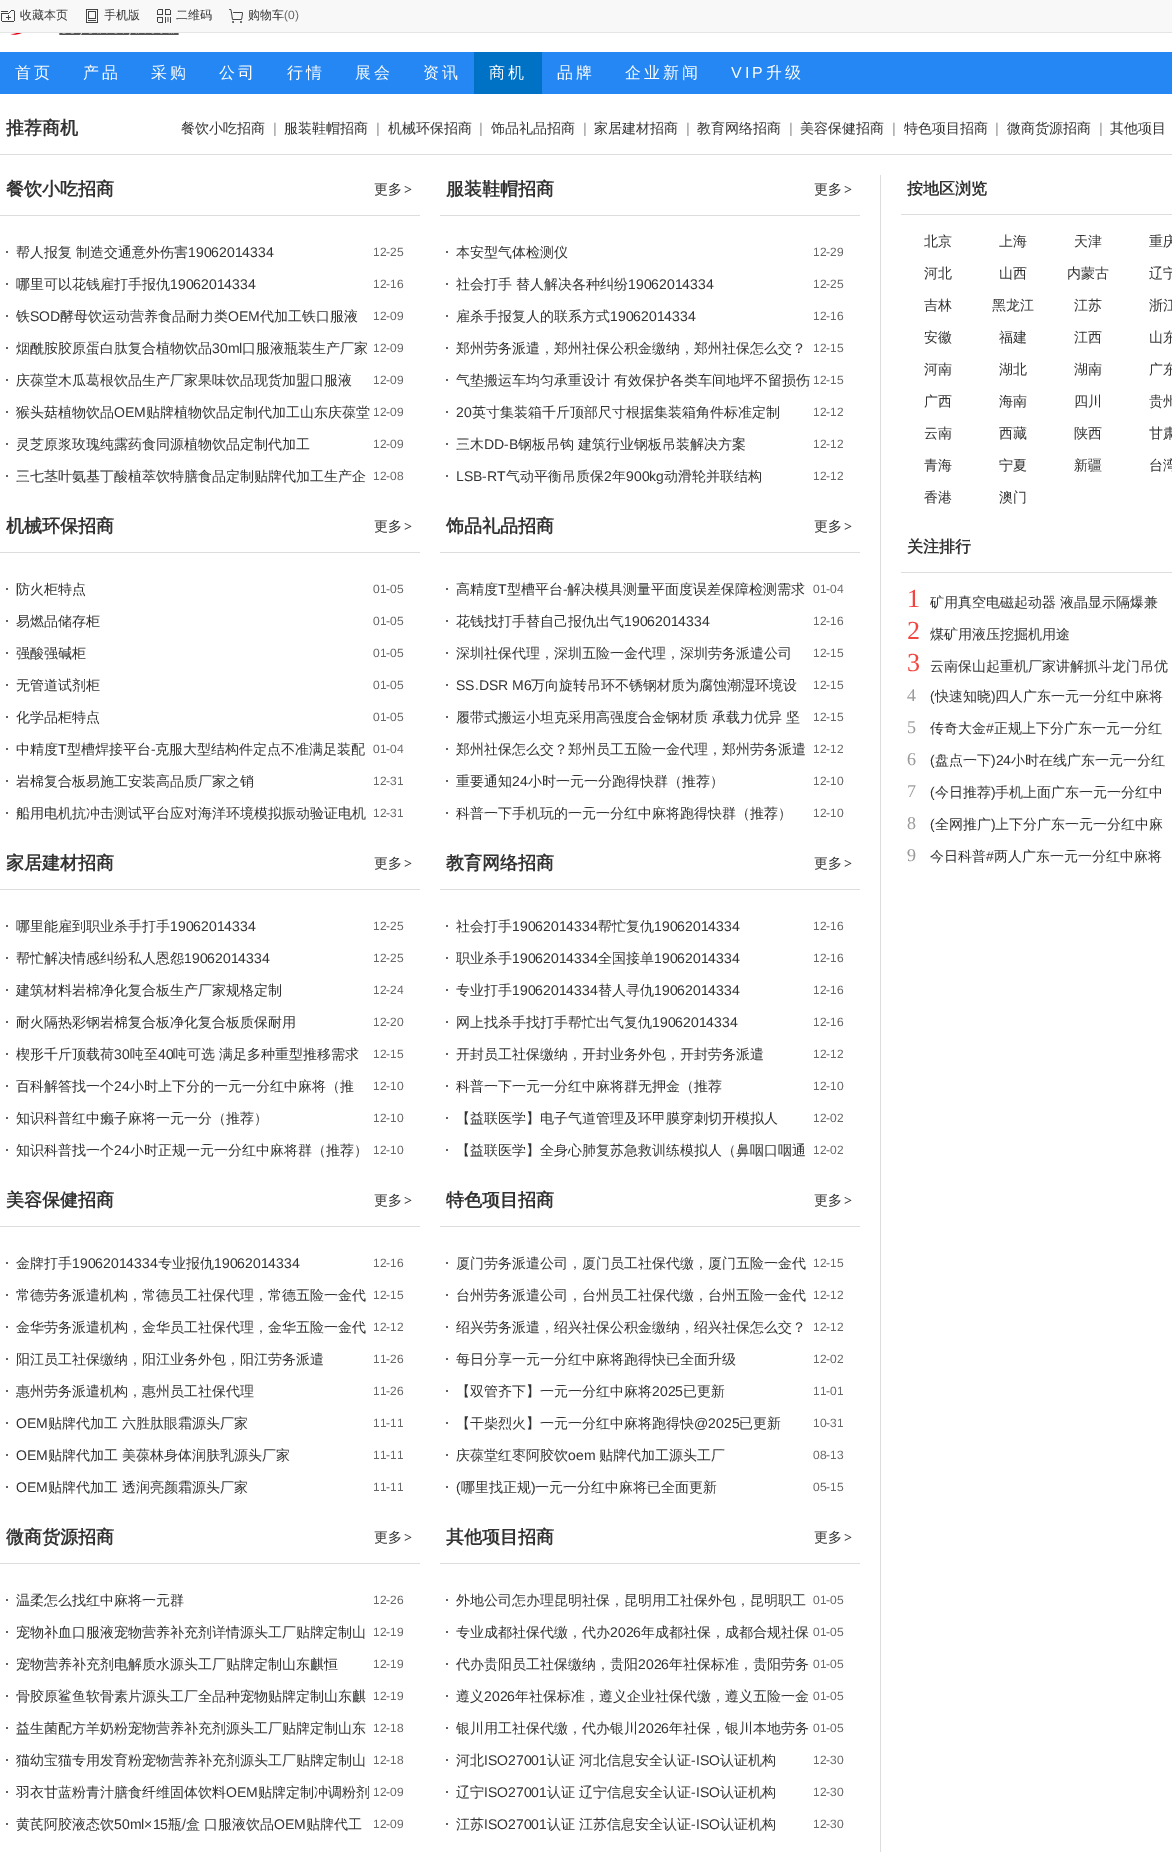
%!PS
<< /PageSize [1172 1852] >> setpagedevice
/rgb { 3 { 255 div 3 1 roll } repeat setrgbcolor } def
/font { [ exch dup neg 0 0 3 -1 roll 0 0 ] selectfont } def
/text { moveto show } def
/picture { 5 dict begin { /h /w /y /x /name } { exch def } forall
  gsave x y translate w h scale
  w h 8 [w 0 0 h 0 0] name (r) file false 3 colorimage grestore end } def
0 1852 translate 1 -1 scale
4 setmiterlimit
255 255 255 rgb
0 0 1172 1852 rectfill
248 248 248 rgb
0 0 1172 32 rectfill
229 229 229 rgb
0 32 1172 1 rectfill
(img_01.rgb) 1 10 14 12 picture
(img_02.rgb) 86 9 12 14 picture
(img_03.rgb) 157 9 14 14 picture
(img_04.rgb) 229 9 14 14 picture
(img_05.rgb) 10 33 169 2 picture
37 135 244 rgb
0 52 1172 42 rectfill
0 114 198 rgb
474 52 68 42 rectfill
221 221 221 rgb
0 154 1172 1 rectfill
880 175 1 1677 rectfill
0 215 420 1 rectfill
100 100 100 rgb
6 251 2 2 rectfill
6 283 2 2 rectfill
6 315 2 2 rectfill
6 347 2 2 rectfill
6 379 2 2 rectfill
6 411 2 2 rectfill
6 443 2 2 rectfill
6 475 2 2 rectfill
221 221 221 rgb
440 215 420 1 rectfill
100 100 100 rgb
446 251 2 2 rectfill
446 283 2 2 rectfill
446 315 2 2 rectfill
446 347 2 2 rectfill
446 379 2 2 rectfill
446 411 2 2 rectfill
446 443 2 2 rectfill
446 475 2 2 rectfill
221 221 221 rgb
0 552 420 1 rectfill
100 100 100 rgb
6 588 2 2 rectfill
6 620 2 2 rectfill
6 652 2 2 rectfill
6 684 2 2 rectfill
6 716 2 2 rectfill
6 748 2 2 rectfill
6 780 2 2 rectfill
6 812 2 2 rectfill
221 221 221 rgb
440 552 420 1 rectfill
100 100 100 rgb
446 588 2 2 rectfill
446 620 2 2 rectfill
446 652 2 2 rectfill
446 684 2 2 rectfill
446 716 2 2 rectfill
446 748 2 2 rectfill
446 780 2 2 rectfill
446 812 2 2 rectfill
221 221 221 rgb
0 889 420 1 rectfill
100 100 100 rgb
6 925 2 2 rectfill
6 957 2 2 rectfill
6 989 2 2 rectfill
6 1021 2 2 rectfill
6 1053 2 2 rectfill
6 1085 2 2 rectfill
6 1117 2 2 rectfill
6 1149 2 2 rectfill
221 221 221 rgb
440 889 420 1 rectfill
100 100 100 rgb
446 925 2 2 rectfill
446 957 2 2 rectfill
446 989 2 2 rectfill
446 1021 2 2 rectfill
446 1053 2 2 rectfill
446 1085 2 2 rectfill
446 1117 2 2 rectfill
446 1149 2 2 rectfill
221 221 221 rgb
0 1226 420 1 rectfill
100 100 100 rgb
6 1262 2 2 rectfill
6 1294 2 2 rectfill
6 1326 2 2 rectfill
6 1358 2 2 rectfill
6 1390 2 2 rectfill
6 1422 2 2 rectfill
6 1454 2 2 rectfill
6 1486 2 2 rectfill
221 221 221 rgb
440 1226 420 1 rectfill
100 100 100 rgb
446 1262 2 2 rectfill
446 1294 2 2 rectfill
446 1326 2 2 rectfill
446 1358 2 2 rectfill
446 1390 2 2 rectfill
446 1422 2 2 rectfill
446 1454 2 2 rectfill
446 1486 2 2 rectfill
221 221 221 rgb
0 1563 420 1 rectfill
100 100 100 rgb
6 1599 2 2 rectfill
6 1631 2 2 rectfill
6 1663 2 2 rectfill
6 1695 2 2 rectfill
6 1727 2 2 rectfill
6 1759 2 2 rectfill
6 1791 2 2 rectfill
6 1823 2 2 rectfill
221 221 221 rgb
440 1563 420 1 rectfill
100 100 100 rgb
446 1599 2 2 rectfill
446 1631 2 2 rectfill
446 1663 2 2 rectfill
446 1695 2 2 rectfill
446 1727 2 2 rectfill
446 1759 2 2 rectfill
446 1791 2 2 rectfill
446 1823 2 2 rectfill
221 221 221 rgb
901 214 271 1 rectfill
901 572 271 1 rectfill
/WenQuanYiZenHei-Medium 12 font
51 51 51 rgb
(收藏本页) 20 19 text
(手机版) 104 19 text
(二维码) 176 19 text
(购物车) 248 19 text
/LiberationSans-Regular 12 font
102 102 102 rgb
(\(0\)) 284 19 text
/WenQuanYiZenHei-Medium 16 font
255 255 255 rgb
15 78 moveto 3 0 (首页) ashow
83 78 moveto 3 0 (产品) ashow
151 78 moveto 3 0 (采购) ashow
219 78 moveto 3 0 (公司) ashow
287 78 moveto 3 0 (行情) ashow
355 78 moveto 3 0 (展会) ashow
423 78 moveto 3 0 (资讯) ashow
489 78 moveto 3 0 (商机) ashow
557 78 moveto 3 0 (品牌) ashow
625 78 moveto 3 0 (企业新闻) ashow
/LiberationSans-Regular 16 font
731 78 moveto 3 0 (VIP) ashow
/WenQuanYiZenHei-Medium 16 font
766 78 moveto 3 0 (升级) ashow
/WenQuanYiZenHei-Bold 18 font
51 51 51 rgb
(推荐商机) 6 134 text
/WenQuanYiZenHei-Medium 14 font
(餐饮小吃招商) 181 133 text
/LiberationSans-Regular 14 font
153 153 153 rgb
(|) 273 133 text
/WenQuanYiZenHei-Medium 14 font
51 51 51 rgb
(服装鞋帽招商) 284 133 text
/LiberationSans-Regular 14 font
153 153 153 rgb
(|) 376 133 text
/WenQuanYiZenHei-Medium 14 font
51 51 51 rgb
(机械环保招商) 388 133 text
/LiberationSans-Regular 14 font
153 153 153 rgb
(|) 479 133 text
/WenQuanYiZenHei-Medium 14 font
51 51 51 rgb
(饰品礼品招商) 491 133 text
/LiberationSans-Regular 14 font
153 153 153 rgb
(|) 583 133 text
/WenQuanYiZenHei-Medium 14 font
51 51 51 rgb
(家居建材招商) 594 133 text
/LiberationSans-Regular 14 font
153 153 153 rgb
(|) 686 133 text
/WenQuanYiZenHei-Medium 14 font
51 51 51 rgb
(教育网络招商) 697 133 text
/LiberationSans-Regular 14 font
153 153 153 rgb
(|) 789 133 text
/WenQuanYiZenHei-Medium 14 font
51 51 51 rgb
(美容保健招商) 800 133 text
/LiberationSans-Regular 14 font
153 153 153 rgb
(|) 892 133 text
/WenQuanYiZenHei-Medium 14 font
51 51 51 rgb
(特色项目招商) 904 133 text
/LiberationSans-Regular 14 font
153 153 153 rgb
(|) 995 133 text
/WenQuanYiZenHei-Medium 14 font
51 51 51 rgb
(微商货源招商) 1007 133 text
/LiberationSans-Regular 14 font
153 153 153 rgb
(|) 1099 133 text
/WenQuanYiZenHei-Medium 14 font
51 51 51 rgb
(其他项目) 1110 133 text
/WenQuanYiZenHei-Bold 18 font
(餐饮小吃招商) 6 195 text
/WenQuanYiZenHei-Medium 14 font
(更多) 374 194 text
/LiberationSerif-Bold 14 font
(>) 404 194 text
/WenQuanYiZenHei-Medium 14 font
(帮人报复 制造交通意外伤害) 16 257 text
/LiberationSans-Regular 14 font
(19062014334) 188 257 text
/LiberationSans-Regular 12 font
102 102 102 rgb
(12-25) 373 256 text
/WenQuanYiZenHei-Medium 14 font
51 51 51 rgb
(哪里可以花钱雇打手报仇) 16 289 text
/LiberationSans-Regular 14 font
(19062014334) 170 289 text
/LiberationSans-Regular 12 font
102 102 102 rgb
(12-16) 373 288 text
/WenQuanYiZenHei-Medium 14 font
51 51 51 rgb
(铁) 16 321 text
/LiberationSans-Regular 14 font
(SOD) 30 321 text
/WenQuanYiZenHei-Medium 14 font
(酵母饮运动营养食品耐力类) 60 321 text
/LiberationSans-Regular 14 font
(OEM) 228 321 text
/WenQuanYiZenHei-Medium 14 font
(代加工铁口服液) 260 321 text
/LiberationSans-Regular 12 font
102 102 102 rgb
(12-09) 373 320 text
/WenQuanYiZenHei-Medium 14 font
51 51 51 rgb
(烟酰胺胶原蛋白肽复合植物饮品) 16 353 text
/LiberationSans-Regular 14 font
(30ml) 212 353 text
/WenQuanYiZenHei-Medium 14 font
(口服液瓶装生产厂家) 242 353 text
/LiberationSans-Regular 12 font
102 102 102 rgb
(12-09) 373 352 text
/WenQuanYiZenHei-Medium 14 font
51 51 51 rgb
(庆葆堂木瓜葛根饮品生产厂家果味饮品现货加盟口服液) 16 385 text
/LiberationSans-Regular 12 font
102 102 102 rgb
(12-09) 373 384 text
/WenQuanYiZenHei-Medium 14 font
51 51 51 rgb
(猴头菇植物饮品) 16 417 text
/LiberationSans-Regular 14 font
(OEM) 114 417 text
/WenQuanYiZenHei-Medium 14 font
(贴牌植物饮品定制代加工山东庆葆堂) 146 417 text
/LiberationSans-Regular 12 font
102 102 102 rgb
(12-09) 373 416 text
/WenQuanYiZenHei-Medium 14 font
51 51 51 rgb
(灵芝原浆玫瑰纯露药食同源植物饮品定制代加工) 16 449 text
/LiberationSans-Regular 12 font
102 102 102 rgb
(12-09) 373 448 text
/WenQuanYiZenHei-Medium 14 font
51 51 51 rgb
(三七茎叶氨基丁酸植萃饮特膳食品定制贴牌代加工生产企) 16 481 text
/LiberationSans-Regular 12 font
102 102 102 rgb
(12-08) 373 480 text
/WenQuanYiZenHei-Bold 18 font
51 51 51 rgb
(服装鞋帽招商) 446 195 text
/WenQuanYiZenHei-Medium 14 font
(更多) 814 194 text
/LiberationSerif-Bold 14 font
(>) 844 194 text
/WenQuanYiZenHei-Medium 14 font
(本安型气体检测仪) 456 257 text
/LiberationSans-Regular 12 font
102 102 102 rgb
(12-29) 813 256 text
/WenQuanYiZenHei-Medium 14 font
51 51 51 rgb
(社会打手 替人解决各种纠纷) 456 289 text
/LiberationSans-Regular 14 font
(19062014334) 628 289 text
/LiberationSans-Regular 12 font
102 102 102 rgb
(12-25) 813 288 text
/WenQuanYiZenHei-Medium 14 font
51 51 51 rgb
(雇杀手报复人的联系方式) 456 321 text
/LiberationSans-Regular 14 font
(19062014334) 610 321 text
/LiberationSans-Regular 12 font
102 102 102 rgb
(12-16) 813 320 text
/WenQuanYiZenHei-Medium 14 font
51 51 51 rgb
(郑州劳务派遣，郑州社保公积金缴纳，郑州社保怎么交？) 456 353 text
/LiberationSans-Regular 12 font
102 102 102 rgb
(12-15) 813 352 text
/WenQuanYiZenHei-Medium 14 font
51 51 51 rgb
(气垫搬运车均匀承重设计 有效保护各类车间地坪不留损伤) 456 385 text
/LiberationSans-Regular 12 font
102 102 102 rgb
(12-15) 813 384 text
/LiberationSans-Regular 14 font
51 51 51 rgb
(20) 456 417 text
/WenQuanYiZenHei-Medium 14 font
(英寸集装箱千斤顶部尺寸根据集装箱角件标准定制) 472 417 text
/LiberationSans-Regular 12 font
102 102 102 rgb
(12-12) 813 416 text
/WenQuanYiZenHei-Medium 14 font
51 51 51 rgb
(三木) 456 449 text
/LiberationSans-Regular 14 font
(DD-B) 484 449 text
/WenQuanYiZenHei-Medium 14 font
(钢板吊钩 建筑行业钢板吊装解决方案) 518 449 text
/LiberationSans-Regular 12 font
102 102 102 rgb
(12-12) 813 448 text
/LiberationSans-Regular 14 font
51 51 51 rgb
(LSB-RT) 456 481 text
/WenQuanYiZenHei-Medium 14 font
(气动平衡吊质保) 506 481 text
/LiberationSans-Regular 14 font
(2) 604 481 text
/WenQuanYiZenHei-Medium 14 font
(年) 612 481 text
/LiberationSans-Regular 14 font
(900kg) 626 481 text
/WenQuanYiZenHei-Medium 14 font
(动滑轮并联结构) 664 481 text
/LiberationSans-Regular 12 font
102 102 102 rgb
(12-12) 813 480 text
/WenQuanYiZenHei-Bold 18 font
51 51 51 rgb
(机械环保招商) 6 532 text
/WenQuanYiZenHei-Medium 14 font
(更多) 374 531 text
/LiberationSerif-Bold 14 font
(>) 404 531 text
/WenQuanYiZenHei-Medium 14 font
(防火柜特点) 16 594 text
/LiberationSans-Regular 12 font
102 102 102 rgb
(01-05) 373 593 text
/WenQuanYiZenHei-Medium 14 font
51 51 51 rgb
(易燃品储存柜) 16 626 text
/LiberationSans-Regular 12 font
102 102 102 rgb
(01-05) 373 625 text
/WenQuanYiZenHei-Medium 14 font
51 51 51 rgb
(强酸强碱柜) 16 658 text
/LiberationSans-Regular 12 font
102 102 102 rgb
(01-05) 373 657 text
/WenQuanYiZenHei-Medium 14 font
51 51 51 rgb
(无管道试剂柜) 16 690 text
/LiberationSans-Regular 12 font
102 102 102 rgb
(01-05) 373 689 text
/WenQuanYiZenHei-Medium 14 font
51 51 51 rgb
(化学品柜特点) 16 722 text
/LiberationSans-Regular 12 font
102 102 102 rgb
(01-05) 373 721 text
/WenQuanYiZenHei-Medium 14 font
51 51 51 rgb
(中精度) 16 754 text
/LiberationSans-Regular 14 font
(T) 58 754 text
/WenQuanYiZenHei-Medium 14 font
(型槽焊接平台) 67 754 text
/LiberationSans-Regular 14 font
(-) 151 754 text
/WenQuanYiZenHei-Medium 14 font
(克服大型结构件定点不准满足装配) 155 754 text
/LiberationSans-Regular 12 font
102 102 102 rgb
(01-04) 373 753 text
/WenQuanYiZenHei-Medium 14 font
51 51 51 rgb
(岩棉复合板易施工安装高品质厂家之销) 16 786 text
/LiberationSans-Regular 12 font
102 102 102 rgb
(12-31) 373 785 text
/WenQuanYiZenHei-Medium 14 font
51 51 51 rgb
(船用电机抗冲击测试平台应对海洋环境模拟振动验证电机) 16 818 text
/LiberationSans-Regular 12 font
102 102 102 rgb
(12-31) 373 817 text
/WenQuanYiZenHei-Bold 18 font
51 51 51 rgb
(饰品礼品招商) 446 532 text
/WenQuanYiZenHei-Medium 14 font
(更多) 814 531 text
/LiberationSerif-Bold 14 font
(>) 844 531 text
/WenQuanYiZenHei-Medium 14 font
(高精度) 456 594 text
/LiberationSans-Regular 14 font
(T) 498 594 text
/WenQuanYiZenHei-Medium 14 font
(型槽平台) 507 594 text
/LiberationSans-Regular 14 font
(-) 563 594 text
/WenQuanYiZenHei-Medium 14 font
(解决模具测量平面度误差保障检测需求) 567 594 text
/LiberationSans-Regular 12 font
102 102 102 rgb
(01-04) 813 593 text
/WenQuanYiZenHei-Medium 14 font
51 51 51 rgb
(花钱找打手替自己报仇出气) 456 626 text
/LiberationSans-Regular 14 font
(19062014334) 624 626 text
/LiberationSans-Regular 12 font
102 102 102 rgb
(12-16) 813 625 text
/WenQuanYiZenHei-Medium 14 font
51 51 51 rgb
(深圳社保代理，深圳五险一金代理，深圳劳务派遣公司) 456 658 text
/LiberationSans-Regular 12 font
102 102 102 rgb
(12-15) 813 657 text
/LiberationSans-Regular 14 font
51 51 51 rgb
(SS.DSR M6) 456 690 text
/WenQuanYiZenHei-Medium 14 font
(万向旋转吊环不锈钢材质为腐蚀潮湿环境设) 531 690 text
/LiberationSans-Regular 12 font
102 102 102 rgb
(12-15) 813 689 text
/WenQuanYiZenHei-Medium 14 font
51 51 51 rgb
(履带式搬运小坦克采用高强度合金钢材质 承载力优异 坚) 456 722 text
/LiberationSans-Regular 12 font
102 102 102 rgb
(12-15) 813 721 text
/WenQuanYiZenHei-Medium 14 font
51 51 51 rgb
(郑州社保怎么交？郑州员工五险一金代理，郑州劳务派遣) 456 754 text
/LiberationSans-Regular 12 font
102 102 102 rgb
(12-12) 813 753 text
/WenQuanYiZenHei-Medium 14 font
51 51 51 rgb
(重要通知) 456 786 text
/LiberationSans-Regular 14 font
(24) 512 786 text
/WenQuanYiZenHei-Medium 14 font
(小时一元一分跑得快群（推荐）) 528 786 text
/LiberationSans-Regular 12 font
102 102 102 rgb
(12-10) 813 785 text
/WenQuanYiZenHei-Medium 14 font
51 51 51 rgb
(科普一下手机玩的一元一分红中麻将跑得快群（推荐）) 456 818 text
/LiberationSans-Regular 12 font
102 102 102 rgb
(12-10) 813 817 text
/WenQuanYiZenHei-Bold 18 font
51 51 51 rgb
(家居建材招商) 6 869 text
/WenQuanYiZenHei-Medium 14 font
(更多) 374 868 text
/LiberationSerif-Bold 14 font
(>) 404 868 text
/WenQuanYiZenHei-Medium 14 font
(哪里能雇到职业杀手打手) 16 931 text
/LiberationSans-Regular 14 font
(19062014334) 170 931 text
/LiberationSans-Regular 12 font
102 102 102 rgb
(12-25) 373 930 text
/WenQuanYiZenHei-Medium 14 font
51 51 51 rgb
(帮忙解决情感纠纷私人恩怨) 16 963 text
/LiberationSans-Regular 14 font
(19062014334) 184 963 text
/LiberationSans-Regular 12 font
102 102 102 rgb
(12-25) 373 962 text
/WenQuanYiZenHei-Medium 14 font
51 51 51 rgb
(建筑材料岩棉净化复合板生产厂家规格定制) 16 995 text
/LiberationSans-Regular 12 font
102 102 102 rgb
(12-24) 373 994 text
/WenQuanYiZenHei-Medium 14 font
51 51 51 rgb
(耐火隔热彩钢岩棉复合板净化复合板质保耐用) 16 1027 text
/LiberationSans-Regular 12 font
102 102 102 rgb
(12-20) 373 1026 text
/WenQuanYiZenHei-Medium 14 font
51 51 51 rgb
(楔形千斤顶载荷) 16 1059 text
/LiberationSans-Regular 14 font
(30) 114 1059 text
/WenQuanYiZenHei-Medium 14 font
(吨至) 130 1059 text
/LiberationSans-Regular 14 font
(40) 158 1059 text
/WenQuanYiZenHei-Medium 14 font
(吨可选 满足多种重型推移需求) 173 1059 text
/LiberationSans-Regular 12 font
102 102 102 rgb
(12-15) 373 1058 text
/WenQuanYiZenHei-Medium 14 font
51 51 51 rgb
(百科解答找一个) 16 1091 text
/LiberationSans-Regular 14 font
(24) 114 1091 text
/WenQuanYiZenHei-Medium 14 font
(小时上下分的一元一分红中麻将（推) 130 1091 text
/LiberationSans-Regular 12 font
102 102 102 rgb
(12-10) 373 1090 text
/WenQuanYiZenHei-Medium 14 font
51 51 51 rgb
(知识科普红中癞子麻将一元一分（推荐）) 16 1123 text
/LiberationSans-Regular 12 font
102 102 102 rgb
(12-10) 373 1122 text
/WenQuanYiZenHei-Medium 14 font
51 51 51 rgb
(知识科普找一个) 16 1155 text
/LiberationSans-Regular 14 font
(24) 114 1155 text
/WenQuanYiZenHei-Medium 14 font
(小时正规一元一分红中麻将群（推荐）) 130 1155 text
/LiberationSans-Regular 12 font
102 102 102 rgb
(12-10) 373 1154 text
/WenQuanYiZenHei-Bold 18 font
51 51 51 rgb
(教育网络招商) 446 869 text
/WenQuanYiZenHei-Medium 14 font
(更多) 814 868 text
/LiberationSerif-Bold 14 font
(>) 844 868 text
/WenQuanYiZenHei-Medium 14 font
(社会打手) 456 931 text
/LiberationSans-Regular 14 font
(19062014334) 512 931 text
/WenQuanYiZenHei-Medium 14 font
(帮忙复仇) 598 931 text
/LiberationSans-Regular 14 font
(19062014334) 654 931 text
/LiberationSans-Regular 12 font
102 102 102 rgb
(12-16) 813 930 text
/WenQuanYiZenHei-Medium 14 font
51 51 51 rgb
(职业杀手) 456 963 text
/LiberationSans-Regular 14 font
(19062014334) 512 963 text
/WenQuanYiZenHei-Medium 14 font
(全国接单) 598 963 text
/LiberationSans-Regular 14 font
(19062014334) 654 963 text
/LiberationSans-Regular 12 font
102 102 102 rgb
(12-16) 813 962 text
/WenQuanYiZenHei-Medium 14 font
51 51 51 rgb
(专业打手) 456 995 text
/LiberationSans-Regular 14 font
(19062014334) 512 995 text
/WenQuanYiZenHei-Medium 14 font
(替人寻仇) 598 995 text
/LiberationSans-Regular 14 font
(19062014334) 654 995 text
/LiberationSans-Regular 12 font
102 102 102 rgb
(12-16) 813 994 text
/WenQuanYiZenHei-Medium 14 font
51 51 51 rgb
(网上找杀手找打手帮忙出气复仇) 456 1027 text
/LiberationSans-Regular 14 font
(19062014334) 652 1027 text
/LiberationSans-Regular 12 font
102 102 102 rgb
(12-16) 813 1026 text
/WenQuanYiZenHei-Medium 14 font
51 51 51 rgb
(开封员工社保缴纳，开封业务外包，开封劳务派遣) 456 1059 text
/LiberationSans-Regular 12 font
102 102 102 rgb
(12-12) 813 1058 text
/WenQuanYiZenHei-Medium 14 font
51 51 51 rgb
(科普一下一元一分红中麻将群无押金（推荐) 456 1091 text
/LiberationSans-Regular 12 font
102 102 102 rgb
(12-10) 813 1090 text
/WenQuanYiZenHei-Medium 14 font
51 51 51 rgb
(【益联医学】电子气道管理及环甲膜穿刺切开模拟人) 456 1123 text
/LiberationSans-Regular 12 font
102 102 102 rgb
(12-02) 813 1122 text
/WenQuanYiZenHei-Medium 14 font
51 51 51 rgb
(【益联医学】全身心肺复苏急救训练模拟人（鼻咽口咽通) 456 1155 text
/LiberationSans-Regular 12 font
102 102 102 rgb
(12-02) 813 1154 text
/WenQuanYiZenHei-Bold 18 font
51 51 51 rgb
(美容保健招商) 6 1206 text
/WenQuanYiZenHei-Medium 14 font
(更多) 374 1205 text
/LiberationSerif-Bold 14 font
(>) 404 1205 text
/WenQuanYiZenHei-Medium 14 font
(金牌打手) 16 1268 text
/LiberationSans-Regular 14 font
(19062014334) 72 1268 text
/WenQuanYiZenHei-Medium 14 font
(专业报仇) 158 1268 text
/LiberationSans-Regular 14 font
(19062014334) 214 1268 text
/LiberationSans-Regular 12 font
102 102 102 rgb
(12-16) 373 1267 text
/WenQuanYiZenHei-Medium 14 font
51 51 51 rgb
(常德劳务派遣机构，常德员工社保代理，常德五险一金代) 16 1300 text
/LiberationSans-Regular 12 font
102 102 102 rgb
(12-15) 373 1299 text
/WenQuanYiZenHei-Medium 14 font
51 51 51 rgb
(金华劳务派遣机构，金华员工社保代理，金华五险一金代) 16 1332 text
/LiberationSans-Regular 12 font
102 102 102 rgb
(12-12) 373 1331 text
/WenQuanYiZenHei-Medium 14 font
51 51 51 rgb
(阳江员工社保缴纳，阳江业务外包，阳江劳务派遣) 16 1364 text
/LiberationSans-Regular 12 font
102 102 102 rgb
(11-26) 373 1363 text
/WenQuanYiZenHei-Medium 14 font
51 51 51 rgb
(惠州劳务派遣机构，惠州员工社保代理) 16 1396 text
/LiberationSans-Regular 12 font
102 102 102 rgb
(11-26) 373 1395 text
/LiberationSans-Regular 14 font
51 51 51 rgb
(OEM) 16 1428 text
/WenQuanYiZenHei-Medium 14 font
(贴牌代加工 六胜肽眼霜源头厂家) 48 1428 text
/LiberationSans-Regular 12 font
102 102 102 rgb
(11-11) 373 1427 text
/LiberationSans-Regular 14 font
51 51 51 rgb
(OEM) 16 1460 text
/WenQuanYiZenHei-Medium 14 font
(贴牌代加工 美葆林身体润肤乳源头厂家) 48 1460 text
/LiberationSans-Regular 12 font
102 102 102 rgb
(11-11) 373 1459 text
/LiberationSans-Regular 14 font
51 51 51 rgb
(OEM) 16 1492 text
/WenQuanYiZenHei-Medium 14 font
(贴牌代加工 透润亮颜霜源头厂家) 48 1492 text
/LiberationSans-Regular 12 font
102 102 102 rgb
(11-11) 373 1491 text
/WenQuanYiZenHei-Bold 18 font
51 51 51 rgb
(特色项目招商) 446 1206 text
/WenQuanYiZenHei-Medium 14 font
(更多) 814 1205 text
/LiberationSerif-Bold 14 font
(>) 844 1205 text
/WenQuanYiZenHei-Medium 14 font
(厦门劳务派遣公司，厦门员工社保代缴，厦门五险一金代) 456 1268 text
/LiberationSans-Regular 12 font
102 102 102 rgb
(12-15) 813 1267 text
/WenQuanYiZenHei-Medium 14 font
51 51 51 rgb
(台州劳务派遣公司，台州员工社保代缴，台州五险一金代) 456 1300 text
/LiberationSans-Regular 12 font
102 102 102 rgb
(12-12) 813 1299 text
/WenQuanYiZenHei-Medium 14 font
51 51 51 rgb
(绍兴劳务派遣，绍兴社保公积金缴纳，绍兴社保怎么交？) 456 1332 text
/LiberationSans-Regular 12 font
102 102 102 rgb
(12-12) 813 1331 text
/WenQuanYiZenHei-Medium 14 font
51 51 51 rgb
(每日分享一元一分红中麻将跑得快已全面升级) 456 1364 text
/LiberationSans-Regular 12 font
102 102 102 rgb
(12-02) 813 1363 text
/WenQuanYiZenHei-Medium 14 font
51 51 51 rgb
(【双管齐下】一元一分红中麻将) 456 1396 text
/LiberationSans-Regular 14 font
(2025) 652 1396 text
/WenQuanYiZenHei-Medium 14 font
(已更新) 683 1396 text
/LiberationSans-Regular 12 font
102 102 102 rgb
(11-01) 813 1395 text
/WenQuanYiZenHei-Medium 14 font
51 51 51 rgb
(【干柴烈火】一元一分红中麻将跑得快) 456 1428 text
/LiberationSans-Regular 14 font
(@2025) 694 1428 text
/WenQuanYiZenHei-Medium 14 font
(已更新) 739 1428 text
/LiberationSans-Regular 12 font
102 102 102 rgb
(10-31) 813 1427 text
/WenQuanYiZenHei-Medium 14 font
51 51 51 rgb
(庆葆堂红枣阿胶饮) 456 1460 text
/LiberationSans-Regular 14 font
(oem) 568 1460 text
/WenQuanYiZenHei-Medium 14 font
(贴牌代加工源头工厂) 599 1460 text
/LiberationSans-Regular 12 font
102 102 102 rgb
(08-13) 813 1459 text
/LiberationSans-Regular 14 font
51 51 51 rgb
(\() 456 1492 text
/WenQuanYiZenHei-Medium 14 font
(哪里找正规) 461 1492 text
/LiberationSans-Regular 14 font
(\)) 531 1492 text
/WenQuanYiZenHei-Medium 14 font
(一元一分红中麻将已全面更新) 535 1492 text
/LiberationSans-Regular 12 font
102 102 102 rgb
(05-15) 813 1491 text
/WenQuanYiZenHei-Bold 18 font
51 51 51 rgb
(微商货源招商) 6 1543 text
/WenQuanYiZenHei-Medium 14 font
(更多) 374 1542 text
/LiberationSerif-Bold 14 font
(>) 404 1542 text
/WenQuanYiZenHei-Medium 14 font
(温柔怎么找红中麻将一元群) 16 1605 text
/LiberationSans-Regular 12 font
102 102 102 rgb
(12-26) 373 1604 text
/WenQuanYiZenHei-Medium 14 font
51 51 51 rgb
(宠物补血口服液宠物营养补充剂详情源头工厂贴牌定制山) 16 1637 text
/LiberationSans-Regular 12 font
102 102 102 rgb
(12-19) 373 1636 text
/WenQuanYiZenHei-Medium 14 font
51 51 51 rgb
(宠物营养补充剂电解质水源头工厂贴牌定制山东麒恒) 16 1669 text
/LiberationSans-Regular 12 font
102 102 102 rgb
(12-19) 373 1668 text
/WenQuanYiZenHei-Medium 14 font
51 51 51 rgb
(骨胶原鲨鱼软骨素片源头工厂全品种宠物贴牌定制山东麒) 16 1701 text
/LiberationSans-Regular 12 font
102 102 102 rgb
(12-19) 373 1700 text
/WenQuanYiZenHei-Medium 14 font
51 51 51 rgb
(益生菌配方羊奶粉宠物营养补充剂源头工厂贴牌定制山东) 16 1733 text
/LiberationSans-Regular 12 font
102 102 102 rgb
(12-18) 373 1732 text
/WenQuanYiZenHei-Medium 14 font
51 51 51 rgb
(猫幼宝猫专用发育粉宠物营养补充剂源头工厂贴牌定制山) 16 1765 text
/LiberationSans-Regular 12 font
102 102 102 rgb
(12-18) 373 1764 text
/WenQuanYiZenHei-Medium 14 font
51 51 51 rgb
(羽衣甘蓝粉青汁膳食纤维固体饮料) 16 1797 text
/LiberationSans-Regular 14 font
(OEM) 226 1797 text
/WenQuanYiZenHei-Medium 14 font
(贴牌定制冲调粉剂) 258 1797 text
/LiberationSans-Regular 12 font
102 102 102 rgb
(12-09) 373 1796 text
/WenQuanYiZenHei-Medium 14 font
51 51 51 rgb
(黄芪阿胶液态饮) 16 1829 text
/LiberationSans-Regular 14 font
(50ml×15) 114 1829 text
/WenQuanYiZenHei-Medium 14 font
(瓶) 168 1829 text
/LiberationSans-Regular 14 font
(/) 182 1829 text
/WenQuanYiZenHei-Medium 14 font
(盒 口服液饮品) 186 1829 text
/LiberationSans-Regular 14 font
(OEM) 274 1829 text
/WenQuanYiZenHei-Medium 14 font
(贴牌代工) 306 1829 text
/LiberationSans-Regular 12 font
102 102 102 rgb
(12-09) 373 1828 text
/WenQuanYiZenHei-Bold 18 font
51 51 51 rgb
(其他项目招商) 446 1543 text
/WenQuanYiZenHei-Medium 14 font
(更多) 814 1542 text
/LiberationSerif-Bold 14 font
(>) 844 1542 text
/WenQuanYiZenHei-Medium 14 font
(外地公司怎办理昆明社保，昆明用工社保外包，昆明职工) 456 1605 text
/LiberationSans-Regular 12 font
102 102 102 rgb
(01-05) 813 1604 text
/WenQuanYiZenHei-Medium 14 font
51 51 51 rgb
(专业成都社保代缴，代办) 456 1637 text
/LiberationSans-Regular 14 font
(2026) 610 1637 text
/WenQuanYiZenHei-Medium 14 font
(年成都社保，成都合规社保) 641 1637 text
/LiberationSans-Regular 12 font
102 102 102 rgb
(01-05) 813 1636 text
/WenQuanYiZenHei-Medium 14 font
51 51 51 rgb
(代办贵阳员工社保缴纳，贵阳) 456 1669 text
/LiberationSans-Regular 14 font
(2026) 638 1669 text
/WenQuanYiZenHei-Medium 14 font
(年社保标准，贵阳劳务) 669 1669 text
/LiberationSans-Regular 12 font
102 102 102 rgb
(01-05) 813 1668 text
/WenQuanYiZenHei-Medium 14 font
51 51 51 rgb
(遵义) 456 1701 text
/LiberationSans-Regular 14 font
(2026) 484 1701 text
/WenQuanYiZenHei-Medium 14 font
(年社保标准，遵义企业社保代缴，遵义五险一金) 515 1701 text
/LiberationSans-Regular 12 font
102 102 102 rgb
(01-05) 813 1700 text
/WenQuanYiZenHei-Medium 14 font
51 51 51 rgb
(银川用工社保代缴，代办银川) 456 1733 text
/LiberationSans-Regular 14 font
(2026) 638 1733 text
/WenQuanYiZenHei-Medium 14 font
(年社保，银川本地劳务) 669 1733 text
/LiberationSans-Regular 12 font
102 102 102 rgb
(01-05) 813 1732 text
/WenQuanYiZenHei-Medium 14 font
51 51 51 rgb
(河北) 456 1765 text
/LiberationSans-Regular 14 font
(ISO27001) 484 1765 text
/WenQuanYiZenHei-Medium 14 font
(认证 河北信息安全认证) 547 1765 text
/LiberationSans-Regular 14 font
(-ISO) 691 1765 text
/WenQuanYiZenHei-Medium 14 font
(认证机构) 720 1765 text
/LiberationSans-Regular 12 font
102 102 102 rgb
(12-30) 813 1764 text
/WenQuanYiZenHei-Medium 14 font
51 51 51 rgb
(辽宁) 456 1797 text
/LiberationSans-Regular 14 font
(ISO27001) 484 1797 text
/WenQuanYiZenHei-Medium 14 font
(认证 辽宁信息安全认证) 547 1797 text
/LiberationSans-Regular 14 font
(-ISO) 691 1797 text
/WenQuanYiZenHei-Medium 14 font
(认证机构) 720 1797 text
/LiberationSans-Regular 12 font
102 102 102 rgb
(12-30) 813 1796 text
/WenQuanYiZenHei-Medium 14 font
51 51 51 rgb
(江苏) 456 1829 text
/LiberationSans-Regular 14 font
(ISO27001) 484 1829 text
/WenQuanYiZenHei-Medium 14 font
(认证 江苏信息安全认证) 547 1829 text
/LiberationSans-Regular 14 font
(-ISO) 691 1829 text
/WenQuanYiZenHei-Medium 14 font
(认证机构) 720 1829 text
/LiberationSans-Regular 12 font
102 102 102 rgb
(12-30) 813 1828 text
/WenQuanYiZenHei-Bold 16 font
51 51 51 rgb
(按地区浏览) 907 194 text
/WenQuanYiZenHei-Medium 14 font
(北京) 924 246 text
(上海) 999 246 text
(天津) 1074 246 text
(重庆) 1149 246 text
(河北) 924 278 text
(山西) 999 278 text
(内蒙古) 1067 278 text
(辽宁) 1149 278 text
(吉林) 924 310 text
(黑龙江) 992 310 text
(江苏) 1074 310 text
(浙江) 1149 310 text
(安徽) 924 342 text
(福建) 999 342 text
(江西) 1074 342 text
(山东) 1149 342 text
(河南) 924 374 text
(湖北) 999 374 text
(湖南) 1074 374 text
(广东) 1149 374 text
(广西) 924 406 text
(海南) 999 406 text
(四川) 1074 406 text
(贵州) 1149 406 text
(云南) 924 438 text
(西藏) 999 438 text
(陕西) 1074 438 text
(甘肃) 1149 438 text
(青海) 924 470 text
(宁夏) 999 470 text
(新疆) 1074 470 text
(台湾) 1149 470 text
(香港) 924 502 text
(澳门) 999 502 text
/WenQuanYiZenHei-Bold 16 font
(关注排行) 907 552 text
/LiberationSerif-Regular 26 font
243 69 64 rgb
(1) 907 607 text
/WenQuanYiZenHei-Medium 14 font
51 51 51 rgb
(矿用真空电磁起动器 液晶显示隔爆兼) 930 607 text
/LiberationSerif-Regular 26 font
243 69 64 rgb
(2) 907 639 text
/WenQuanYiZenHei-Medium 14 font
51 51 51 rgb
(煤矿用液压挖掘机用途) 930 639 text
/LiberationSerif-Regular 26 font
243 69 64 rgb
(3) 907 671 text
/WenQuanYiZenHei-Medium 14 font
51 51 51 rgb
(云南保山起重机厂家讲解抓斗龙门吊优) 930 671 text
/LiberationSerif-Regular 18 font
153 153 153 rgb
(4) 907 701 text
/LiberationSans-Regular 14 font
51 51 51 rgb
(\() 930 701 text
/WenQuanYiZenHei-Medium 14 font
(快速知晓) 935 701 text
/LiberationSans-Regular 14 font
(\)) 991 701 text
/WenQuanYiZenHei-Medium 14 font
(四人广东一元一分红中麻将) 995 701 text
/LiberationSerif-Regular 18 font
153 153 153 rgb
(5) 907 733 text
/WenQuanYiZenHei-Medium 14 font
51 51 51 rgb
(传奇大金) 930 733 text
/LiberationSans-Regular 14 font
(#) 986 733 text
/WenQuanYiZenHei-Medium 14 font
(正规上下分广东一元一分红) 994 733 text
/LiberationSerif-Regular 18 font
153 153 153 rgb
(6) 907 765 text
/LiberationSans-Regular 14 font
51 51 51 rgb
(\() 930 765 text
/WenQuanYiZenHei-Medium 14 font
(盘点一下) 935 765 text
/LiberationSans-Regular 14 font
(\)24) 991 765 text
/WenQuanYiZenHei-Medium 14 font
(小时在线广东一元一分红) 1011 765 text
/LiberationSerif-Regular 18 font
153 153 153 rgb
(7) 907 797 text
/LiberationSans-Regular 14 font
51 51 51 rgb
(\() 930 797 text
/WenQuanYiZenHei-Medium 14 font
(今日推荐) 935 797 text
/LiberationSans-Regular 14 font
(\)) 991 797 text
/WenQuanYiZenHei-Medium 14 font
(手机上面广东一元一分红中) 995 797 text
/LiberationSerif-Regular 18 font
153 153 153 rgb
(8) 907 829 text
/LiberationSans-Regular 14 font
51 51 51 rgb
(\() 930 829 text
/WenQuanYiZenHei-Medium 14 font
(全网推广) 935 829 text
/LiberationSans-Regular 14 font
(\)) 991 829 text
/WenQuanYiZenHei-Medium 14 font
(上下分广东一元一分红中麻) 995 829 text
/LiberationSerif-Regular 18 font
153 153 153 rgb
(9) 907 861 text
/WenQuanYiZenHei-Medium 14 font
51 51 51 rgb
(今日科普) 930 861 text
/LiberationSans-Regular 14 font
(#) 986 861 text
/WenQuanYiZenHei-Medium 14 font
(两人广东一元一分红中麻将) 994 861 text
showpage
